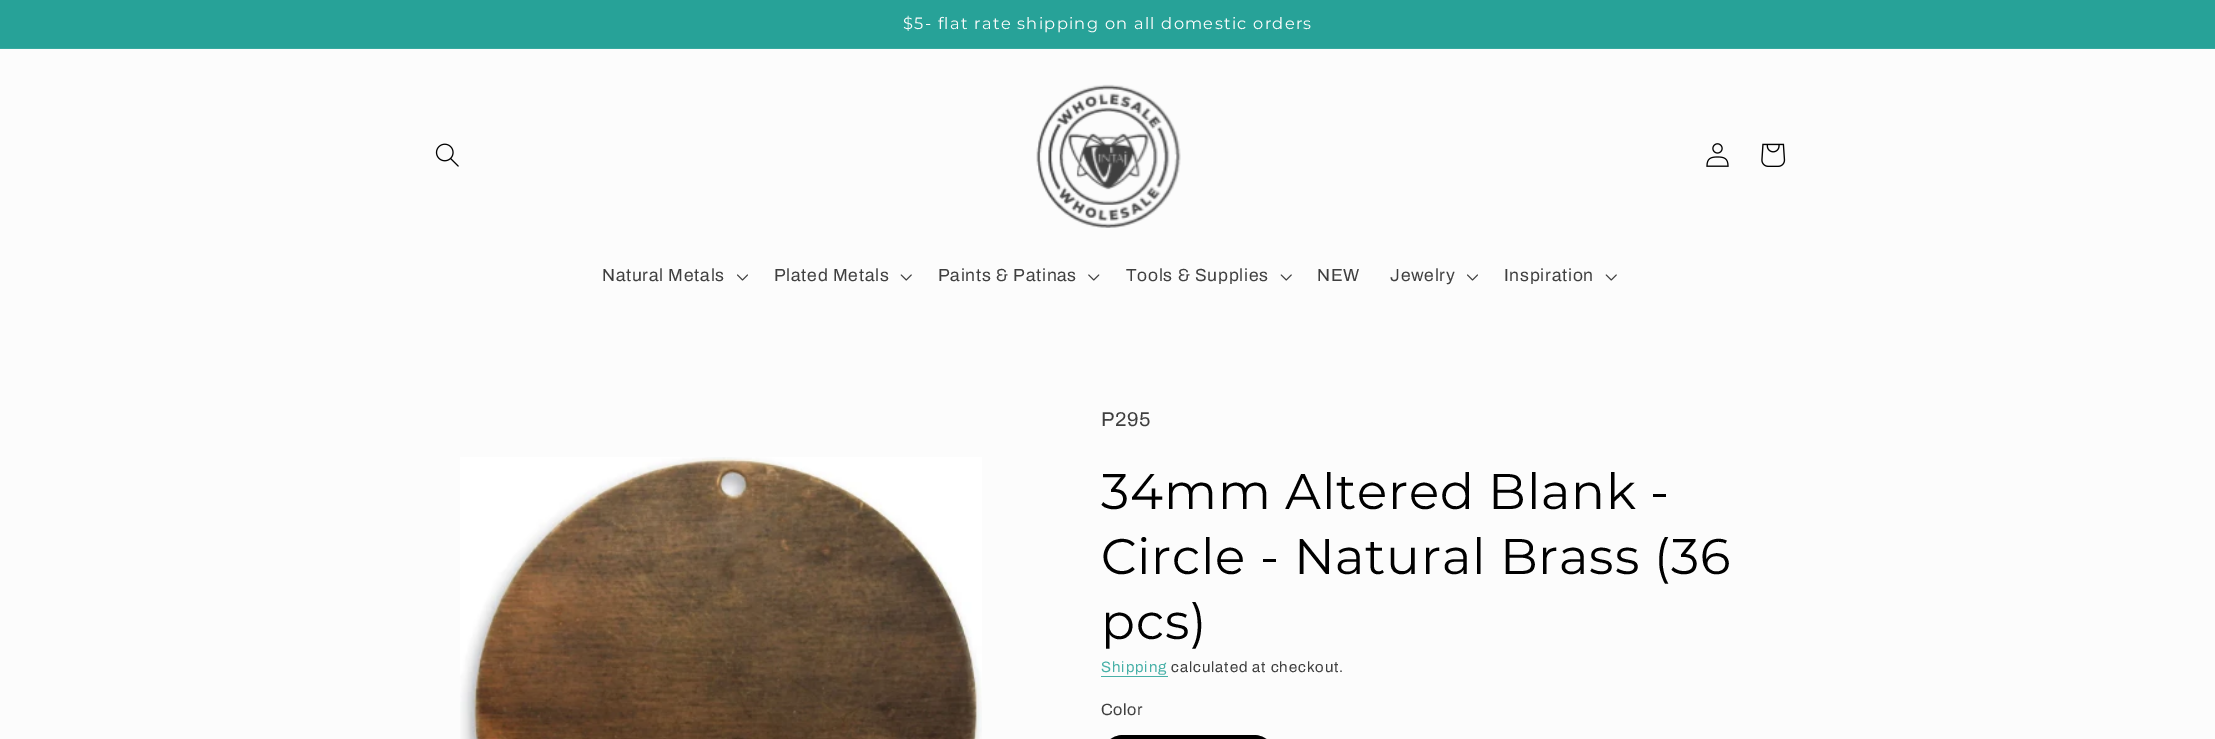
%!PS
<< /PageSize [2215 739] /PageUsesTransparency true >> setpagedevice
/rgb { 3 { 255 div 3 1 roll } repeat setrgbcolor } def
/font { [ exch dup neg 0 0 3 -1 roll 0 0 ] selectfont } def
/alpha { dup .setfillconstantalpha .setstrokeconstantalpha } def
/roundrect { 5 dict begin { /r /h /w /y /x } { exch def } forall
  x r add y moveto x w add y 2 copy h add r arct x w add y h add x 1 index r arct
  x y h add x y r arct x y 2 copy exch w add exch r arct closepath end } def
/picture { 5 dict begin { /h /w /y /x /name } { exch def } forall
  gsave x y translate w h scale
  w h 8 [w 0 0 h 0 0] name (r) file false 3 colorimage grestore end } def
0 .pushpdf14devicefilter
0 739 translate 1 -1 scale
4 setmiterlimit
252 252 252 rgb
0 0 2215 739 rectfill
39 162 152 rgb
0 0 2215 48 rectfill
56 169 160 rgb
0 48 2215 1 rectfill
(img_01.rgb) 435 143 24 24 picture
(img_02.rgb) 1036 84 145 144 picture
(img_03.rgb) 1706 143 23 24 picture
(img_04.rgb) 1761 143 25 24 picture
(img_05.rgb) 737 274 11 7 picture
(img_06.rgb) 900 274 12 7 picture
(img_07.rgb) 1088 274 12 7 picture
(img_06.rgb) 1280 274 12 7 picture
(img_05.rgb) 1467 274 11 7 picture
(img_06.rgb) 1605 274 12 7 picture
(img_08.rgb) 460 457 522 282 picture
71 176 167 rgb
1101 676 67 1 rectfill
0 0 0 rgb
1101 735 175 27 22.5 roundrect fill
0.55 alpha
1101.5 735.5 174 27 22 roundrect stroke
/Montserrat-Regular 16.25 font
1 alpha
252 252 252 rgb
903 29 moveto 1.25 0 ($5- flat rate shipping on all domestic orders) ashow
/Archivo-Regular 17.5 font
63 63 63 rgb
602 281 moveto 0.75 0 (Natural Metals) ashow
774 281 moveto 0.75 0 (Plated Metals) ashow
938 281 moveto 0.75 0 (Paints & Patinas) ashow
1126 281 moveto 0.75 0 (Tools & Supplies) ashow
1317 281 moveto 0.75 0 (NEW) ashow
1390 281 moveto 0.75 0 (Jewelry) ashow
1504 281 moveto 0.75 0 (Inspiration) ashow
/Archivo-Regular 20 font
1101 426 moveto 0.75 0 (P295) ashow
/Montserrat-Regular 50 font
0 0 0 rgb
1101 509 moveto 0.75 0 (34mm Altered Blank -) ashow
1101 574 moveto 0.75 0 (Circle - Natural Brass \(36) ashow
1101 639 moveto 0.75 0 (pcs\)) ashow
/Archivo-Regular 15 font
71 176 167 rgb
1101 672 moveto 0.9 0 (Shipping) ashow
63 63 63 rgb
1171 672 moveto 0.9 0 (calculated at checkout.) ashow
/Archivo-Regular 16.25 font
1101 715 moveto 0.5 0 (Color) ashow
.poppdf14devicefilter showpage
